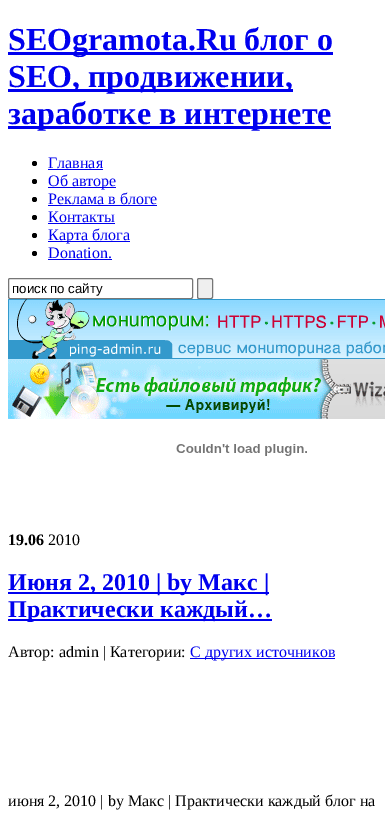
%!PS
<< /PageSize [385 815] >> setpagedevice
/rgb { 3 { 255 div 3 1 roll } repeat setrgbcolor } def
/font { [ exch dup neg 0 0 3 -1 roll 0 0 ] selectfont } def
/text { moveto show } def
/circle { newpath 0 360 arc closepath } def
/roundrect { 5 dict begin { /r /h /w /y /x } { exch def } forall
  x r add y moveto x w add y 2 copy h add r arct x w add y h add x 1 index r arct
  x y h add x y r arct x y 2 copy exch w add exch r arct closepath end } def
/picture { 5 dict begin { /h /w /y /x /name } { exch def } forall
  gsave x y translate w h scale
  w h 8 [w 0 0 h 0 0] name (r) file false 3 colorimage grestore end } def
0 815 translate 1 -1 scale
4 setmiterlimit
255 255 255 rgb
0 0 385 815 rectfill
0 0 238 rgb
8 52 325 3 rectfill
8 89 285 3 rectfill
8 126 323 3 rectfill
0 0 0 rgb
34.5 163.5 2.5 circle fill
0 0 238 rgb
48 169 55 1 rectfill
0 0 0 rgb
34.5 181.5 2.5 circle fill
0 0 238 rgb
48 187 68 1 rectfill
0 0 0 rgb
34.5 199.5 2.5 circle fill
0 0 238 rgb
48 205 109 1 rectfill
0 0 0 rgb
34.5 217.5 2.5 circle fill
0 0 238 rgb
48 223 67 1 rectfill
0 0 0 rgb
34.5 235.5 2.5 circle fill
0 0 238 rgb
48 241 82 1 rectfill
0 0 0 rgb
34.5 253.5 2.5 circle fill
0 0 238 rgb
48 259 64 1 rectfill
118 118 118 rgb
8.5 278.5 184 20 1.5 roundrect stroke
239 239 239 rgb
197.5 278.5 15 20 1.5 roundrect gsave fill grestore
118 118 118 rgb
stroke
(img_01.rgb) 8 299 377 60 picture
(img_02.rgb) 8 359 377 60 picture
(img_03.rgb) 176 444 131 12 picture
0 0 238 rgb
8 592 261 2 rectfill
8 619 264 2 rectfill
190 658 145 1 rectfill
/LiberationSerif-Bold 32 font
(SEOgramota.Ru блог о) 8 50 text
(SEO, продвижении,) 8 87 text
(заработке в интернете) 8 124 text
/LiberationSerif-Regular 16 font
(Главная) 48 168 text
(Об авторе) 48 186 text
(Реклама в блоге) 48 204 text
(Контакты) 48 222 text
(Карта блога) 48 240 text
(Donation.) 48 258 text
/LiberationSans-Regular 13.25 font
0 0 0 rgb
(поиск по сайту) 12 293 text
/LiberationSerif-Bold 16 font
(19.06) 8 545 text
/LiberationSerif-Regular 16 font
(2010) 48 545 text
/LiberationSerif-Bold 24 font
0 0 238 rgb
(Июня 2, 2010 | by Макс |) 8 590 text
(Практически каждый…) 8 617 text
/LiberationSerif-Regular 16 font
0 0 0 rgb
(Автор: admin | Категории:) 8 657 text
0 0 238 rgb
(С других источников) 190 657 text
0 0 0 rgb
(июня 2, 2010 | by Макс | Практически каждый блог на) 8 806 text
showpage
